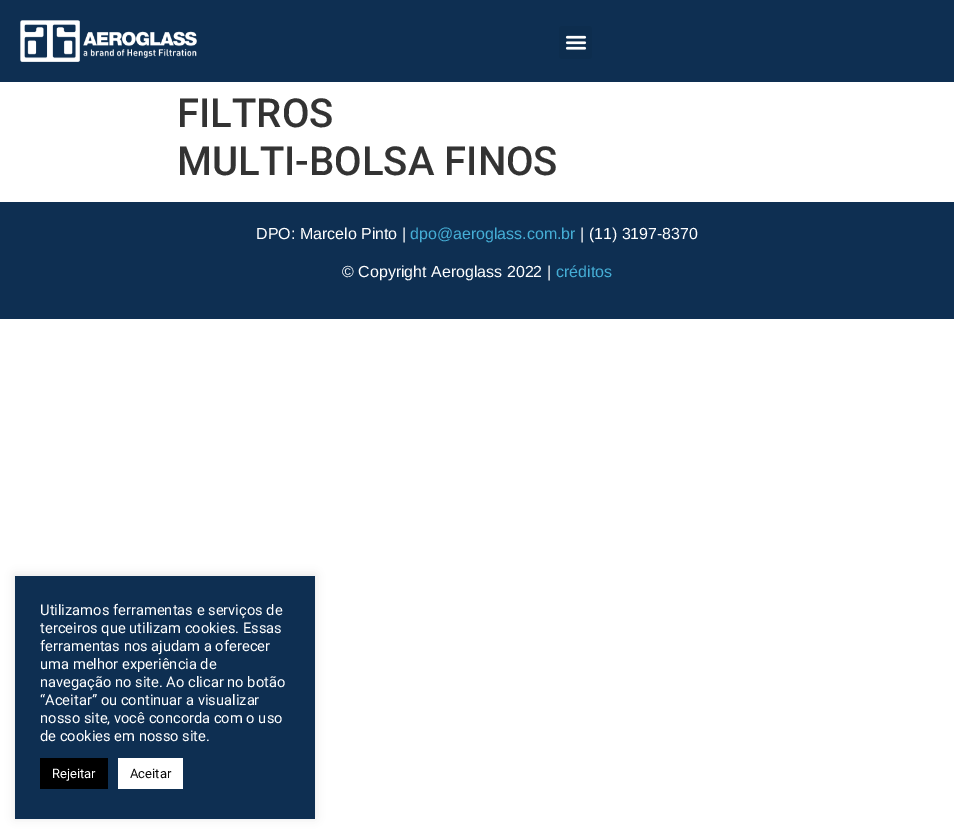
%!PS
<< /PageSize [954 834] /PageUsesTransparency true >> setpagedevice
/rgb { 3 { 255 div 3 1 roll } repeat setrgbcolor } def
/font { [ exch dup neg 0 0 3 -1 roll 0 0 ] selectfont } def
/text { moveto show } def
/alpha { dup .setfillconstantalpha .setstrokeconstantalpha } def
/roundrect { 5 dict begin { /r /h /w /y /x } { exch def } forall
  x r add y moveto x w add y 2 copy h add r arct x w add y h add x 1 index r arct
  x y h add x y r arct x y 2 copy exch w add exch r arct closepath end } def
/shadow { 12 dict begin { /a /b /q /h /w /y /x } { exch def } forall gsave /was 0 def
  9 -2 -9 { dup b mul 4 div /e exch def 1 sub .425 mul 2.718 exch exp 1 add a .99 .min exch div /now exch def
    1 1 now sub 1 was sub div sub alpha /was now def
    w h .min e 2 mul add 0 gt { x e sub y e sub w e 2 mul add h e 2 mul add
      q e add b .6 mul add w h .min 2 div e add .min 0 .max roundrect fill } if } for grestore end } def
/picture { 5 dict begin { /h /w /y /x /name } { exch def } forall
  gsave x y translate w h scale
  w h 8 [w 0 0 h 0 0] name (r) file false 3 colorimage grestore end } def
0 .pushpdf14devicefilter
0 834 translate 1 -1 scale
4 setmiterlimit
255 255 255 rgb
0 0 954 834 rectfill
14 47 82 rgb
0 0 954 82 rectfill
(img_01.rgb) 20 20 177 42 picture
13 45 78 rgb
559 26 33 33 3 roundrect fill
(img_02.rgb) 565 35 22 15 picture
14 47 82 rgb
0 202 954 117 rectfill
172 171 171 rgb
15 575 300 243 0 5 0.3 shadow
14 47 82 rgb
15 576 300 243 rectfill
0 0 0 rgb
40 758 68 31 rectfill
255 255 255 rgb
118 758 65 31 rectfill
/Roboto-Medium 40 font
51 51 51 rgb
(FILTROS) 177 127 text
(MULTI-BOLSA FINOS) 177 175 text
/LiberationSans-Regular 16 font
255 255 255 rgb
(DPO: Marcelo Pinto |) 256 239 text
69 174 214 rgb
(dpo@aeroglass.com.br) 410 239 text
255 255 255 rgb
(| \(11\) 3197-8370) 580 239 text
(© Copyright Aeroglass 2022 |) 342 277 text
69 174 214 rgb
(créditos) 556 277 text
/Roboto-Regular 14.7 font
255 255 255 rgb
(Utilizamos ferramentas e serviços de) 40 615 text
(terceiros que utilizam cookies. Essas) 40 633 text
(ferramentas nos ajudam a oferecer) 40 651 text
(uma melhor experiência de) 40 669 text
(navegação no site. Ao clicar no botão) 40 687 text
(“Aceitar” ou continuar a visualizar) 40 705 text
(nosso site, você concorda com o uso) 40 723 text
(de cookies em nosso site.) 40 741 text
/Roboto-Regular 13 font
(Rejeitar) 52 778 text
10 10 10 rgb
(Aceitar) 130 778 text
.poppdf14devicefilter showpage
